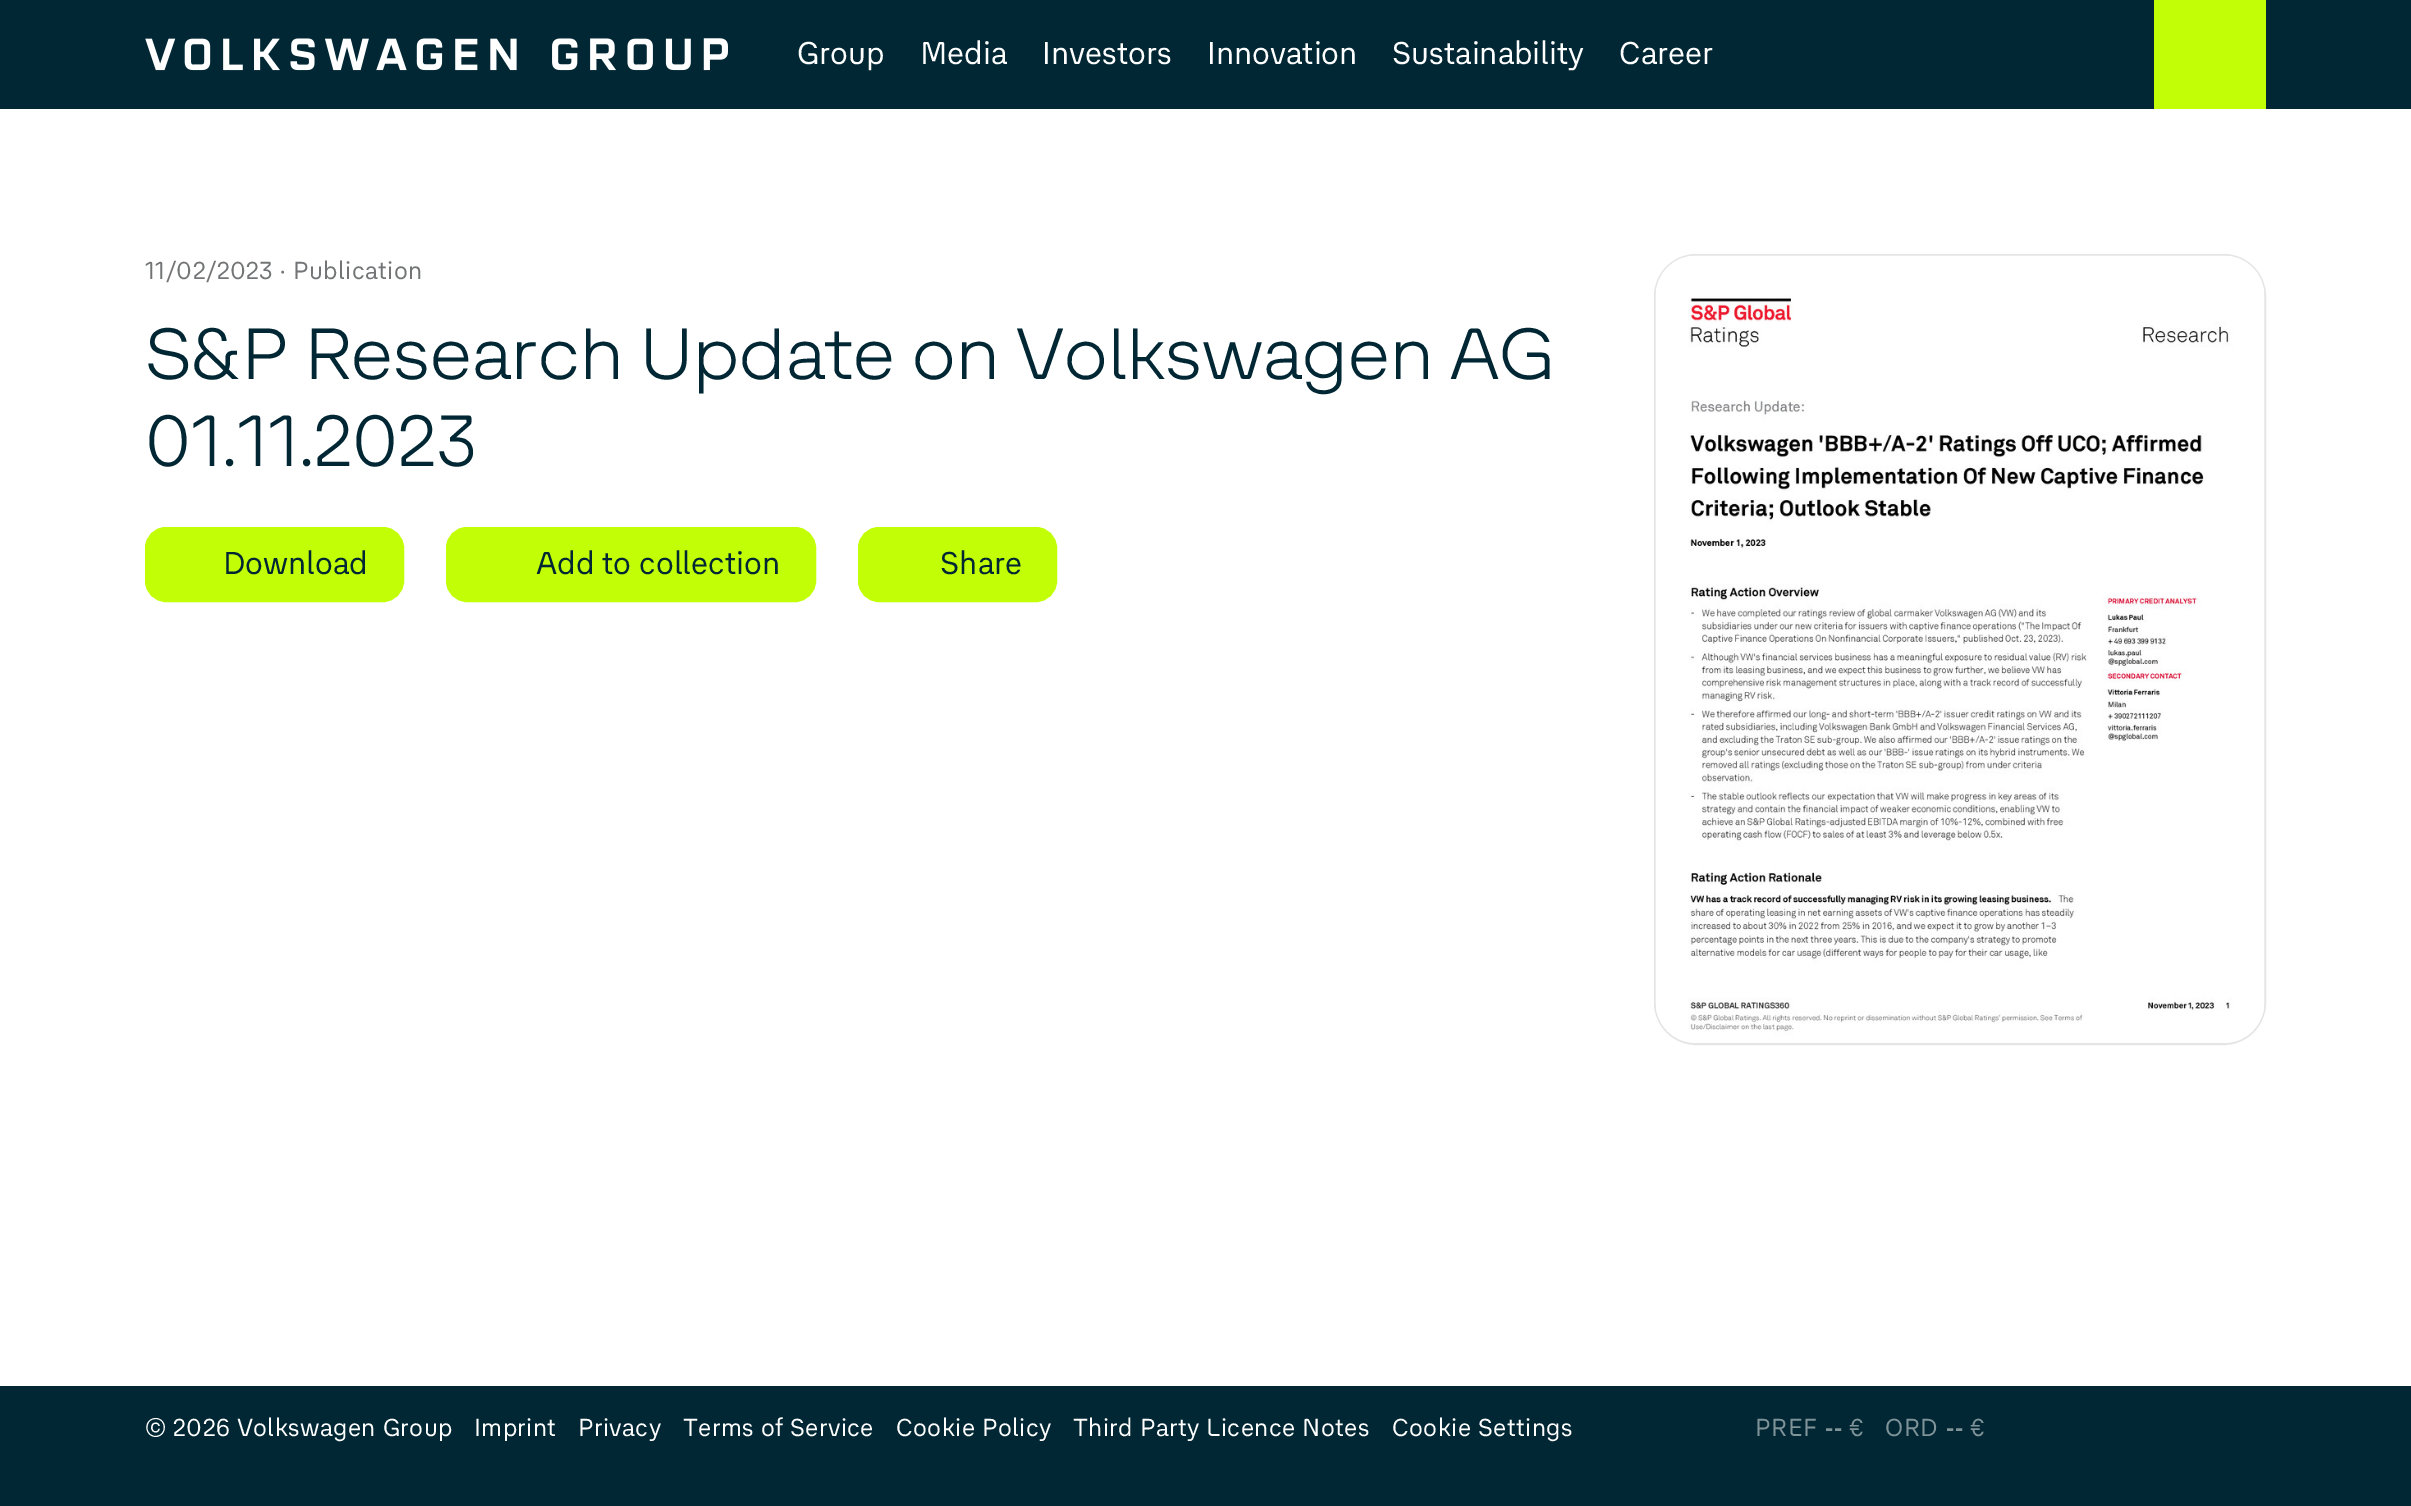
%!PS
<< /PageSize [2411 1506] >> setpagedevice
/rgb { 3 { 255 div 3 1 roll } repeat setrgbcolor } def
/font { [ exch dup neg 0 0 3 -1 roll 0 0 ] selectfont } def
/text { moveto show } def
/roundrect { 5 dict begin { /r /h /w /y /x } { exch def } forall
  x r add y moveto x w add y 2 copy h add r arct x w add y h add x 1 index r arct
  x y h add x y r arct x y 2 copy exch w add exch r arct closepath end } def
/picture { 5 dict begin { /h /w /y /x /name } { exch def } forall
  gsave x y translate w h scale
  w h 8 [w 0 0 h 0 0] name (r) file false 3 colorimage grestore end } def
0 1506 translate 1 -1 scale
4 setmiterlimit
0 39 51 rgb
0 0 2411 1506 rectfill
(img_01.rgb) 145 38 583 33 picture
194 254 6 rgb
2154 0 112 109 rectfill
255 255 255 rgb
0 109 2411 1277 rectfill
194 254 6 rgb
147.5 529.5 254 70 18.5 roundrect gsave fill grestore
5 setlinewidth
stroke
448.5 529.5 365 70 18.5 roundrect gsave fill grestore
stroke
860.5 529.5 194 70 18.5 roundrect gsave fill grestore
stroke
229 229 229 rgb
2 setlinewidth
1655 255 610 789 41 roundrect stroke
(img_02.rgb) 1655 255 610 788 picture
/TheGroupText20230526-Regular 31.5 font
255 255 255 rgb
(Group) 797 64 text
(Media) 920 64 text
(Investors) 1042 64 text
(Innovation) 1207 64 text
(Sustainability) 1392 64 text
(Career) 1619 64 text
/TheGroupText20230526-Regular 24.5 font
114 116 117 rgb
145 279 moveto 0.4 0 (11/02/2023) ashow
280 279 moveto 0.4 0 (·) ashow
293 279 moveto 0.4 0 (Publication) ashow
/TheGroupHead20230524-Light 72.3 font
0 39 51 rgb
(S&P Research Update on Volkswagen AG) 145 379 text
(01.11.2023) 145 466 text
/TheGroupText20230526-Regular 31.5 font
(Download) 223 574 text
(Add to collection) 536 574 text
(Share) 940 574 text
/TheGroupText20230526-Regular 24.5 font
255 255 255 rgb
145 1436 moveto 0.4 0 (© 2026 Volkswagen Group) ashow
474 1436 moveto 0.4 0 (Imprint) ashow
578 1436 moveto 0.4 0 (Privacy) ashow
683 1436 moveto 0.4 0 (Terms of Service) ashow
896 1436 moveto 0.4 0 (Cookie Policy) ashow
1073 1436 moveto 0.4 0 (Third Party Licence Notes) ashow
1392 1436 moveto 0.4 0 (Cookie Settings) ashow
128 147 153 rgb
1755 1436 moveto 0.4 0 (PREF) ashow
/LiberationSans-Bold 24.5 font
1825 1436 moveto 0.4 0 (--) ashow
/TheGroupText20230526-Regular 24.5 font
1849 1436 moveto 0.4 0 (€) ashow
1885 1436 moveto 0.4 0 (ORD) ashow
/LiberationSans-Bold 24.5 font
1946 1436 moveto 0.4 0 (--) ashow
/TheGroupText20230526-Regular 24.5 font
1970 1436 moveto 0.4 0 (€) ashow
showpage
